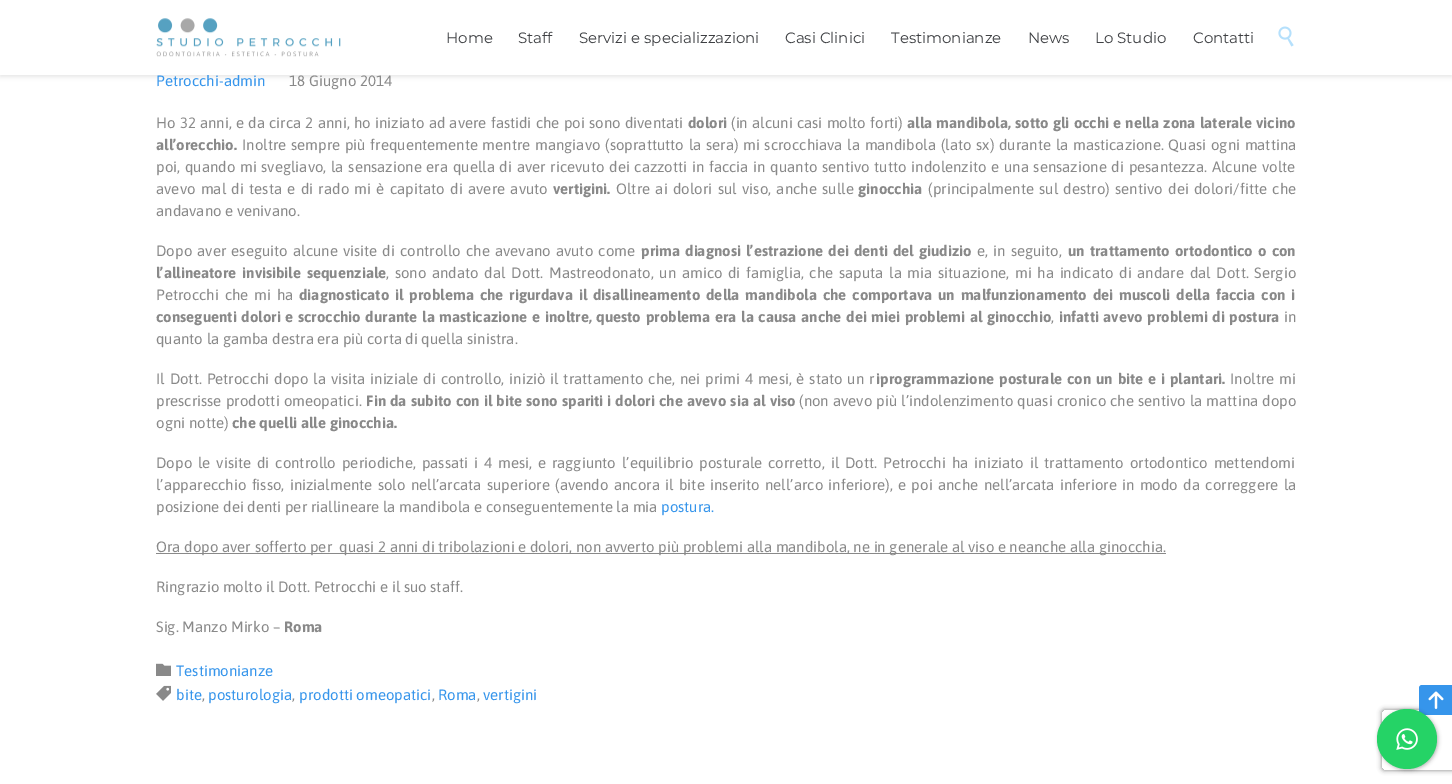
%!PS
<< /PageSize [1452 784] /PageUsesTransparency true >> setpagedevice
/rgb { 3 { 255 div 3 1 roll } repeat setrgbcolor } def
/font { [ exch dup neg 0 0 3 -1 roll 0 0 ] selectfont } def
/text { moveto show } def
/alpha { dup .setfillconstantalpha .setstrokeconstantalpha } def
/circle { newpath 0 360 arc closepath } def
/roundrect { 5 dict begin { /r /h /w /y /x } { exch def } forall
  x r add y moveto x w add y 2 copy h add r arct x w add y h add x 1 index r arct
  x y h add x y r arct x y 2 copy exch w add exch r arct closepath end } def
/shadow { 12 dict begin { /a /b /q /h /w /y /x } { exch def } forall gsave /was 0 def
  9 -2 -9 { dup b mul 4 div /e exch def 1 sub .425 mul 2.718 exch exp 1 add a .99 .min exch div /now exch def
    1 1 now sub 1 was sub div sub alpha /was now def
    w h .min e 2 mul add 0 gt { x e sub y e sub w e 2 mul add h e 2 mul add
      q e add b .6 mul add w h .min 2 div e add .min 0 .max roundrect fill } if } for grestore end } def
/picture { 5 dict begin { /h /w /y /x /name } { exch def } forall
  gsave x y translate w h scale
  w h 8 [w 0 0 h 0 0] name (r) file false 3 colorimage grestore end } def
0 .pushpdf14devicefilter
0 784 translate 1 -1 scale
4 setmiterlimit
255 255 255 rgb
0 0 1452 784 rectfill
0 0 0 rgb
0 -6 1452 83 0 2 0.09 shadow
137 137 137 rgb
156 553 1010 1 rectfill
(img_03.rgb) 156 663 15 13 picture
(img_04.rgb) 156 685 15 16 picture
gsave
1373 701 moveto 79 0 rlineto 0 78 rlineto -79 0 rlineto closepath 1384 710 moveto 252 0 rlineto 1 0 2 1 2 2 rcurveto 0 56 rlineto 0 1 -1 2 -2 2 rcurveto -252 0 rlineto -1 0 -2 -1 -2 -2 rcurveto 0 -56 rlineto 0 -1 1 -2 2 -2 rcurveto closepath eoclip newpath
128 128 128 rgb
1382 710 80 60 2 2.5 1 shadow
grestore
54 149 235 rgb
1422 685 moveto 30 0 rlineto 0 30 rlineto -33 0 rlineto 0 -27 rlineto 0 -1.5 1.5 -3 3 -3 rcurveto closepath fill
(img_05.rgb) 1428 691 16 18 picture
0 0 0 rgb
1378 710 60 60 30 2 0.3 shadow
37 211 102 rgb
1407 739 30 circle fill
(img_06.rgb) 1396 728 22 22 picture
/Asap-Regular 15 font
54 149 235 rgb
(Petrocchi-admin) 156 86 text
255 255 255 rgb
0 0 1452 75 rectfill
/Montserrat-Regular 15 font
62 64 67 rgb
(Contatti) 1193 43 text
(Lo Studio) 1095 43 text
(News) 1028 43 text
(Testimonianze) 891 43 text
(Casi Clinici) 785 43 text
(Servizi e specializzazioni) 579 43 text
(Staff) 518 43 text
(Home) 446 43 text
(img_01.rgb) 156 18 185 39 picture
(img_02.rgb) 1278 26 16 21 picture
/Asap-Regular 15 font
137 137 137 rgb
(18 Giugno 2014) 289 86 text
156 128 moveto 0.6 0 32 (Ho 32 anni, e da circa 2 anni, ho iniziato ad avere fastidi che poi sono diventati) widthshow
/Asap-Bold 15 font
(dolori) 688 128 text
/Asap-Regular 15 font
731 128 moveto 0.6 0 32 (\(in alcuni casi molto forti\)) widthshow
/Asap-Bold 15 font
907 128 moveto 0.6 0 32 (alla mandibola, sotto gli occhi e nella zona laterale vicino) widthshow
(all’orecchio.) 156 150 text
/Asap-Regular 15 font
242 150 moveto 1.1 0 32 (Inoltre sempre più frequentemente mentre mangiavo \(soprattutto la sera\) mi scrocchiava la mandibola \(lato sx\) durante la masticazione. Quasi ogni mattina) widthshow
156 172 moveto 1.1 0 32 (poi, quando mi svegliavo, la sensazione era quella di aver ricevuto dei cazzotti in faccia in quanto sentivo tutto indolenzito e una sensazione di pesantezza. Alcune volte) widthshow
156 194 moveto 1.75 0 32 (avevo mal di testa e di rado mi è capitato di avere avuto) widthshow
/Asap-Bold 15 font
(vertigini.) 553 194 text
/Asap-Regular 15 font
616 194 moveto 1.75 0 32 (Oltre ai dolori sul viso, anche sulle) widthshow
/Asap-Bold 15 font
(ginocchia) 858 194 text
/Asap-Regular 15 font
928 194 moveto 1.75 0 32 (\(principalmente sul destro\) sentivo dei dolori/fitte che) widthshow
(andavano e venivano.) 156 216 text
156 256 moveto 1.5 0 32 (Dopo aver eseguito alcune visite di controllo che avevano avuto come) widthshow
/Asap-Bold 15 font
641 256 moveto 1.5 0 32 (prima diagnosi l’estrazione dei denti del giudizio) widthshow
/Asap-Regular 15 font
977 256 moveto 1.5 0 32 (e, in seguito,) widthshow
/Asap-Bold 15 font
1068 256 moveto 1.5 0 32 (un trattamento ortodontico o con) widthshow
156 278 moveto 2.1 0 32 (l’allineatore invisibile sequenziale) widthshow
/Asap-Regular 15 font
386 278 moveto 2.1 0 32 (, sono andato dal Dott. Mastreodonato, un amico di famiglia, che saputa la mia situazione, mi ha indicato di andare dal Dott. Sergio) widthshow
156 300 moveto 2.3 0 32 (Petrocchi che mi ha) widthshow
/Asap-Bold 15 font
299 300 moveto 2.25 0 32 (diagnosticato il problema che rigurdava il disallineamento della mandibola che comportava un malfunzionamento dei muscoli della faccia con i) widthshow
156 322 moveto 1 0 32 (conseguenti dolori e scrocchio durante la masticazione) widthshow
532 322 moveto 1 0 32 (e inoltre, questo problema era la causa anche dei miei problemi al ginocchio) widthshow
/Asap-Regular 15 font
(,) 1051 322 text
/Asap-Bold 15 font
1059 322 moveto 1 0 32 (infatti avevo problemi di postura) widthshow
/Asap-Regular 15 font
(in) 1284 322 text
(quanto la gamba destra era più corta di quella sinistra.) 156 344 text
156 384 moveto 1.25 0 32 (Il Dott. Petrocchi dopo la visita iniziale di controllo, iniziò il trattamento che, nei primi 4 mesi, è stato un r) widthshow
/Asap-Bold 15 font
876 384 moveto 1.25 0 32 (iprogrammazione posturale con un bite e i plantari.) widthshow
/Asap-Regular 15 font
1230 384 moveto 1 0 32 (Inoltre mi) widthshow
156 406 moveto 0.5 0 32 (prescrisse prodotti omeopatici.) widthshow
/Asap-Bold 15 font
366 406 moveto 0.5 0 32 (Fin da subito con il bite sono spariti i dolori che avevo sia al viso) widthshow
/Asap-Regular 15 font
799 406 moveto 0.5 0 32 (\(non avevo più l’indolenzimento quasi cronico che sentivo la mattina dopo) widthshow
(ogni notte\)) 156 428 text
/Asap-Bold 15 font
(che quelli alle ginocchia.) 232 428 text
/Asap-Regular 15 font
156 468 moveto 2.3 0 32 (Dopo le visite di controllo periodiche, passati i 4 mesi, e raggiunto l’equilibrio posturale corretto, il Dott. Petrocchi ha iniziato il trattamento ortodontico mettendomi) widthshow
156 490 moveto 1.75 0 32 (l’apparecchio fisso, inizialmente solo nell’arcata superiore \(avendo ancora il bite inserito nell’arco inferiore\), e poi anche nell’arcata inferiore in modo da correggere la) widthshow
(posizione dei denti per riallineare la mandibola e conseguentemente la mia) 156 512 text
54 149 235 rgb
(postura.) 661 512 text
137 137 137 rgb
(Ora dopo aver sofferto per  quasi 2 anni di tribolazioni e dolori, non avverto più problemi alla mandibola, ne in generale al viso e neanche alla ginocchia.) 156 552 text
(Ringrazio molto il Dott. Petrocchi e il suo staff.) 156 592 text
(Sig. Manzo Mirko –) 156 632 text
/Asap-Bold 15 font
(Roma) 284 632 text
/Asap-Regular 15 font
54 149 235 rgb
(Testimonianze) 176 676 text
(bite) 176 700 text
137 137 137 rgb
(,) 202 700 text
54 149 235 rgb
(posturologia) 208 700 text
137 137 137 rgb
(,) 292 700 text
54 149 235 rgb
(prodotti omeopatici) 299 700 text
137 137 137 rgb
(,) 432 700 text
54 149 235 rgb
(Roma) 438 700 text
137 137 137 rgb
(,) 477 700 text
54 149 235 rgb
(vertigini) 483 700 text
.poppdf14devicefilter showpage
